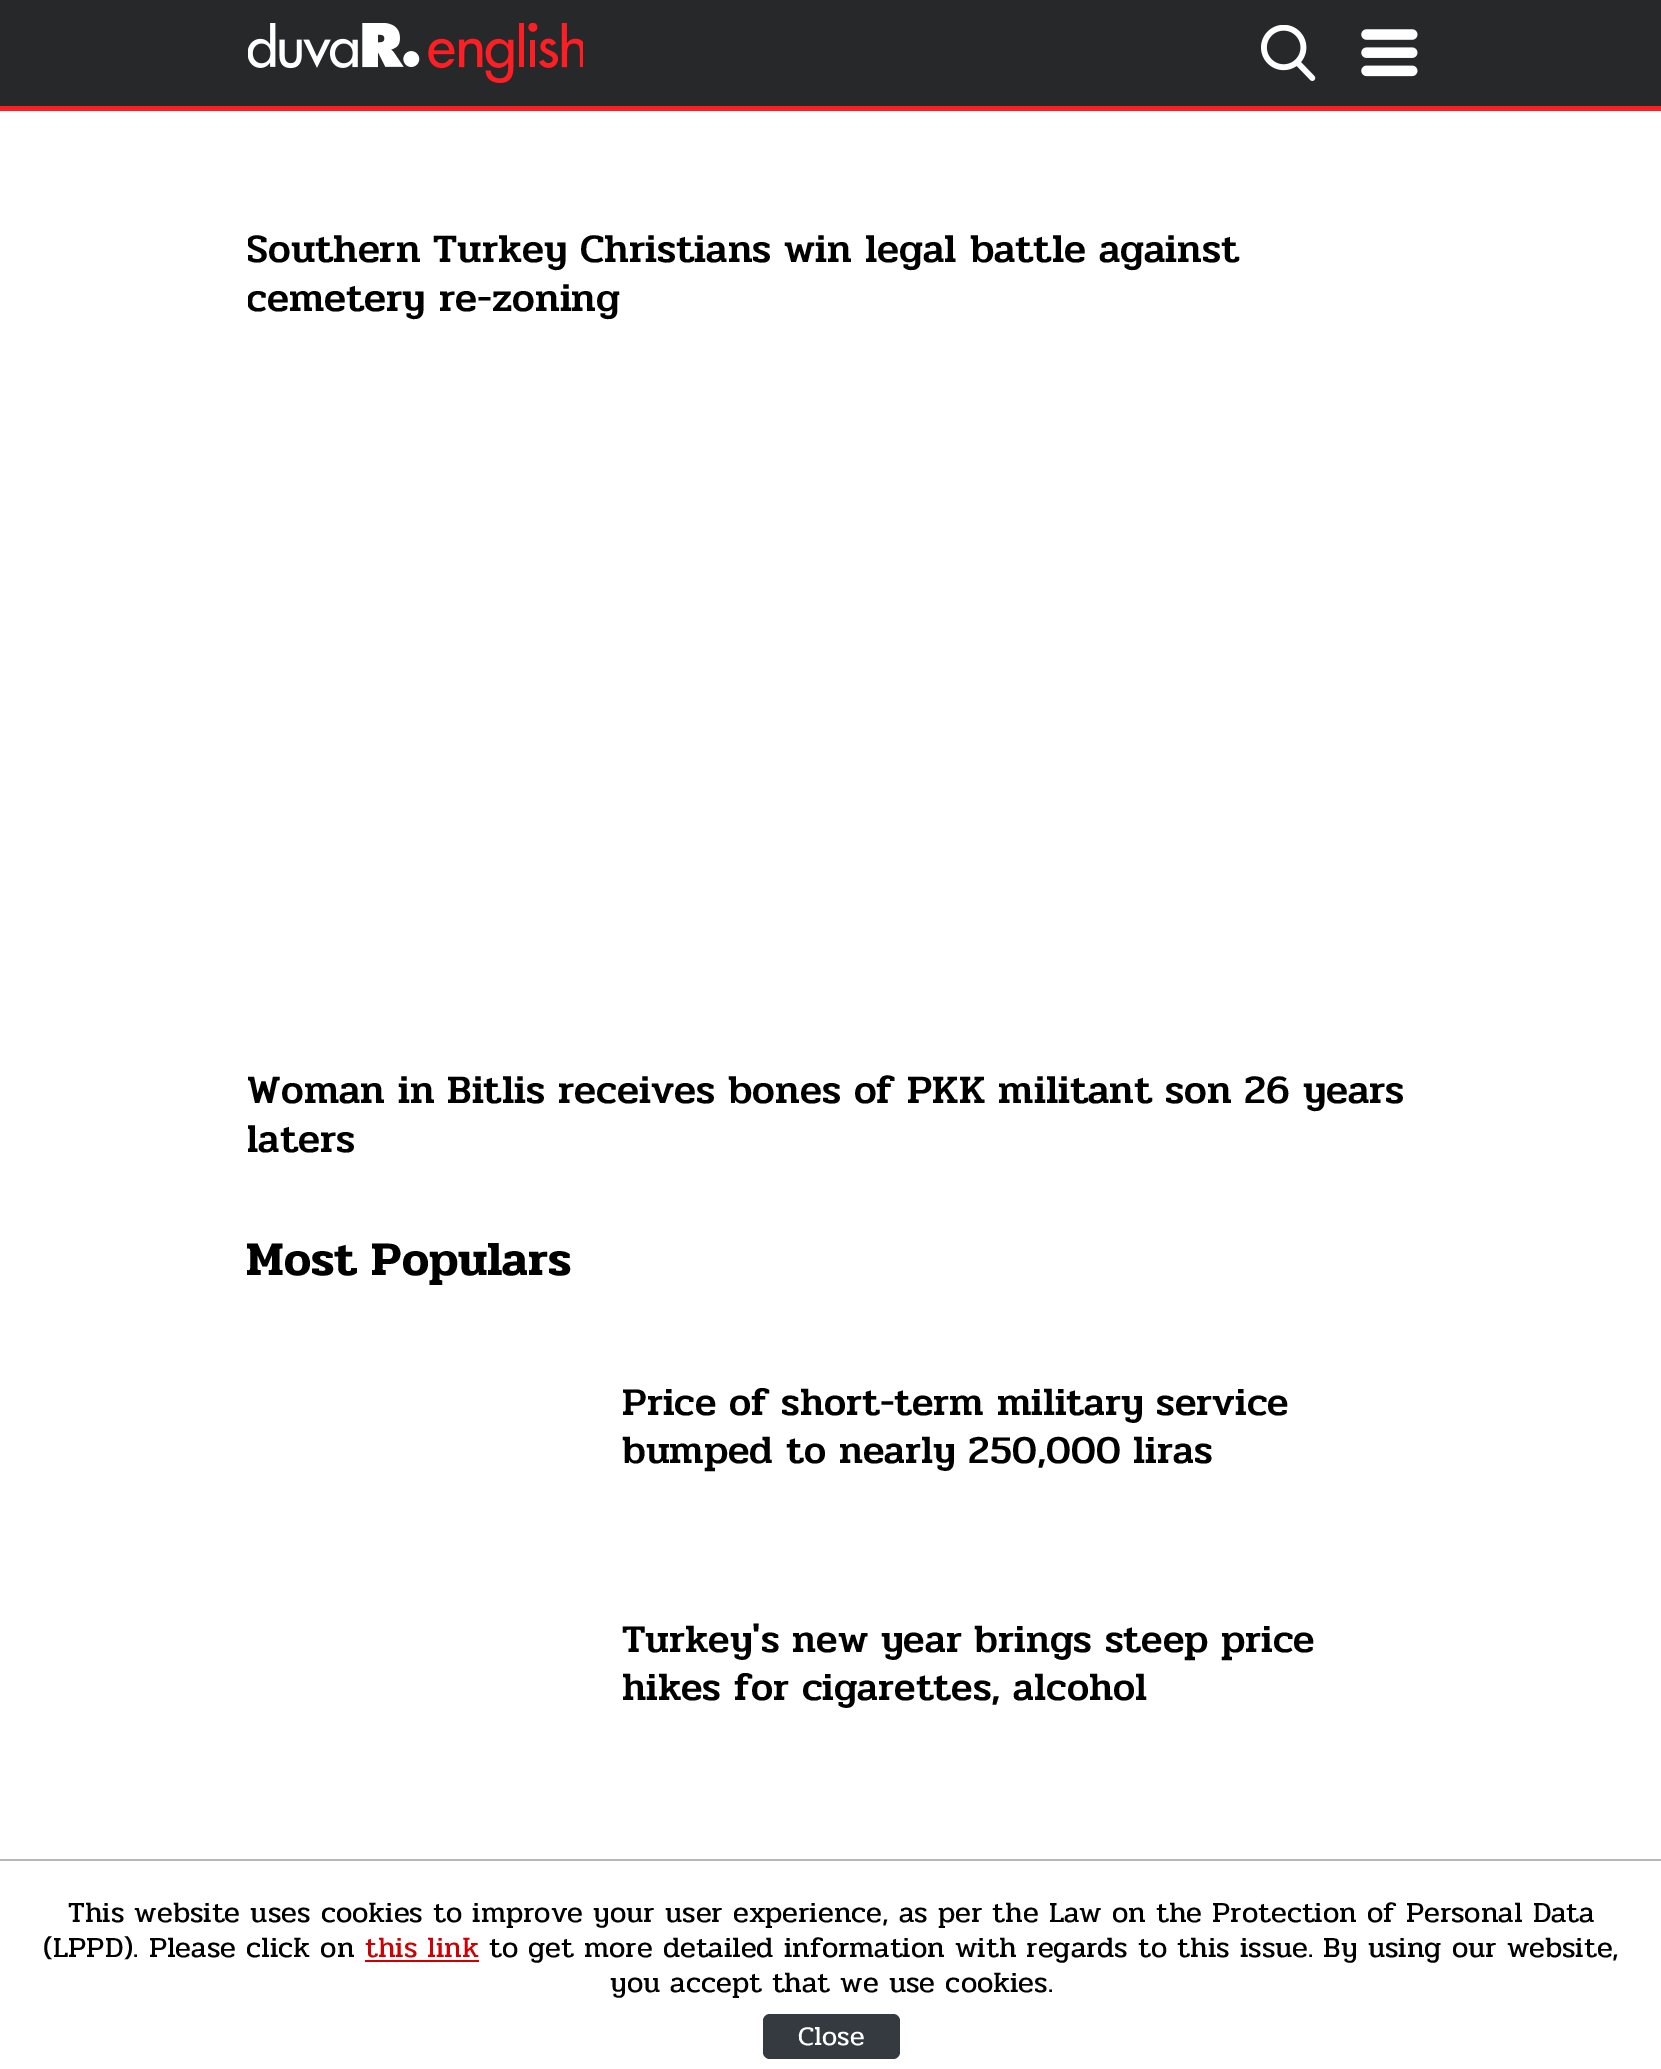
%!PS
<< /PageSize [1661 2069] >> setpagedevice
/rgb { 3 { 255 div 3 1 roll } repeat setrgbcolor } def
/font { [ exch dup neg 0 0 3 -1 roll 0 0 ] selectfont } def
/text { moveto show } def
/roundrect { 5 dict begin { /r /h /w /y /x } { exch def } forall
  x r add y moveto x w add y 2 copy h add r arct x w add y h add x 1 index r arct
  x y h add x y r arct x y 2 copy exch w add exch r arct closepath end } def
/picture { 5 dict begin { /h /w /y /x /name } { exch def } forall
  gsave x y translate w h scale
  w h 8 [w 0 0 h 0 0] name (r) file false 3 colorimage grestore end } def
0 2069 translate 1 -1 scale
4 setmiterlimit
255 255 255 rgb
0 0 1661 2069 rectfill
39 40 41 rgb
0 0 1661 106 rectfill
255 30 35 rgb
0 106 1661 5 rectfill
(img_01.rgb) 248 23 335 60 picture
(img_02.rgb) 1261 25 55 56 picture
(img_03.rgb) 1361 29 57 48 picture
183 183 183 rgb
0 1859 1661 2 rectfill
206 0 1 rgb
365 1960 114 2 rectfill
52 58 64 rgb
763 2014 137 45 7 roundrect fill
gsave
248 209 1170 115 rectclip
/Pridi-Medium 40.5 font
0 0 0 rgb
(Southern Turkey Christians win legal battle against) 246 262 text
(cemetery re-zoning) 246 311 text
grestore
gsave
248 1049 1170 117 rectclip
/Pridi-Medium 40.5 font
0 0 0 rgb
(Woman in Bitlis receives bones of PKK militant son 26 years) 246 1103 text
(laters) 246 1152 text
grestore
/Pridi-SemiBold 48.5 font
0 0 0 rgb
(Most Populars) 246 1275 text
/Pridi-Medium 39.6 font
(Price of short-term military service) 622 1415 text
(bumped to nearly 250,000 liras) 622 1463 text
(Turkey's new year brings steep price) 622 1652 text
(hikes for cigarettes, alcohol) 622 1700 text
/Pridi-Regular 29.25 font
(This website uses cookies to improve your user experience, as per the Law on the Protection of Personal Data) 68 1922 text
(\(LPPD\). Please click on) 43 1957 text
206 0 1 rgb
(this link) 365 1957 text
0 0 0 rgb
(to get more detailed information with regards to this issue. By using our website,) 489 1957 text
(you accept that we use cookies.) 610 1992 text
/Pridi-Regular 27 font
255 255 255 rgb
(Close) 798 2045 text
showpage
